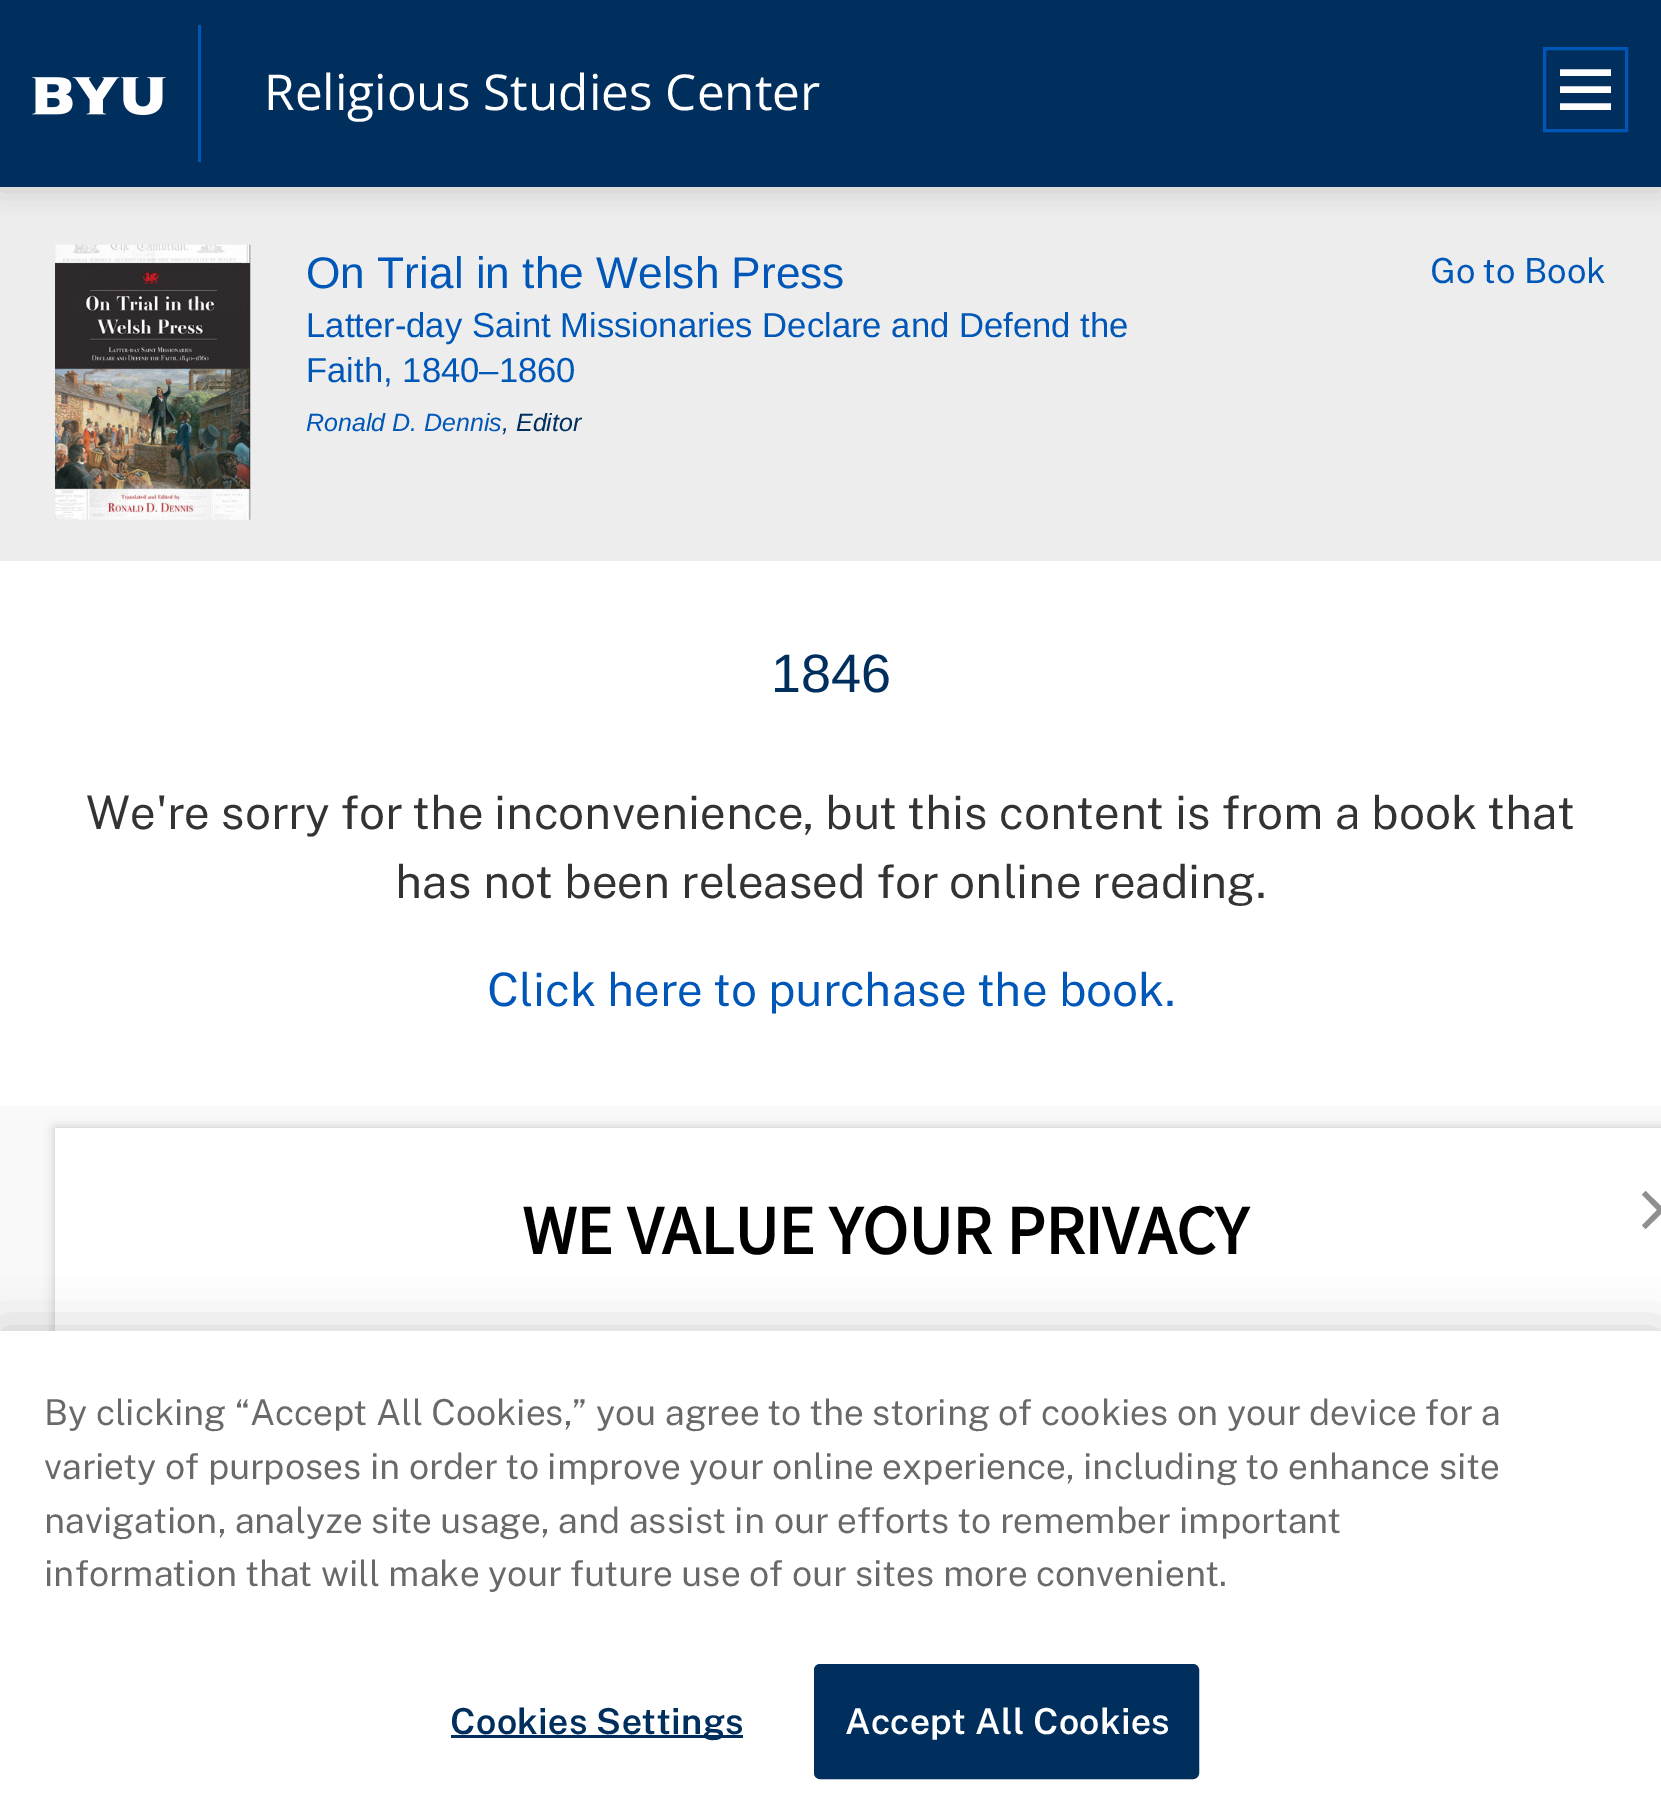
%!PS
<< /PageSize [1661 1816] /PageUsesTransparency true >> setpagedevice
/rgb { 3 { 255 div 3 1 roll } repeat setrgbcolor } def
/font { [ exch dup neg 0 0 3 -1 roll 0 0 ] selectfont } def
/text { moveto show } def
/alpha { dup .setfillconstantalpha .setstrokeconstantalpha } def
/roundrect { 5 dict begin { /r /h /w /y /x } { exch def } forall
  x r add y moveto x w add y 2 copy h add r arct x w add y h add x 1 index r arct
  x y h add x y r arct x y 2 copy exch w add exch r arct closepath end } def
/shadow { 12 dict begin { /a /b /q /h /w /y /x } { exch def } forall gsave /was 0 def
  9 -2 -9 { dup b mul 4 div /e exch def 1 sub .425 mul 2.718 exch exp 1 add a .99 .min exch div /now exch def
    1 1 now sub 1 was sub div sub alpha /was now def
    w h .min e 2 mul add 0 gt { x e sub y e sub w e 2 mul add h e 2 mul add
      q e add b .6 mul add w h .min 2 div e add .min 0 .max roundrect fill } if } for grestore end } def
/picture { 5 dict begin { /h /w /y /x /name } { exch def } forall
  gsave x y translate w h scale
  w h 8 [w 0 0 h 0 0] name (r) file false 3 colorimage grestore end } def
0 .pushpdf14devicefilter
0 1816 translate 1 -1 scale
4 setmiterlimit
255 255 255 rgb
0 0 1661 1816 rectfill
237 237 237 rgb
0 190 1661 371 rectfill
0 0 0 rgb
0 0 1661 190 0 14 0.16 shadow
221 221 221 rgb
0 187 1661 3 rectfill
0 46 93 rgb
0 0 1661 187 rectfill
(img_01.rgb) 32 77 134 38 picture
0 87 184 rgb
198 25 3 137 rectfill
3 setlinewidth
1544.5 48.5 82 82 rectstroke
255 255 255 rgb
6.4 setlinewidth
1560 72.5 moveto 51 0 rlineto 1560 89.5 moveto 51 0 rlineto 1560 106.5 moveto 51 0 rlineto stroke
(img_02.rgb) 55 244 196 276 picture
249 249 249 rgb
0 1106 1661 225 rectfill
0 0 0 rgb
55 1128 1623 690 0 5.5 0.2 shadow
255 255 255 rgb
55 1128 1606 203 rectfill
143 143 143 rgb
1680 1194.5 moveto -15 15.5 rlineto 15 15.5 rlineto -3.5 3.5 rlineto -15.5 -15 rlineto -15.5 15 rlineto -3.5 -3.5 rlineto 15 -15.5 rlineto -15 -15.5 rlineto 3.5 -3.5 rlineto 15.5 15 rlineto 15.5 -15 rlineto closepath eofill
0 0 0 rgb
0 1331 1661 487 0 25 0.2 shadow
255 255 255 rgb
0 1331 1661 485 rectfill
0 46 93 rgb
451 1735 292 3 rectfill
815.5 1665.5 382 112 4.5 roundrect gsave fill grestore
3 setlinewidth
stroke
/OpenSans-Regular 49.5 font
255 255 255 rgb
(Religious Studies Center) 264 110 text
/LiberationSans-Regular 44.25 font
0 87 184 rgb
(On Trial in the Welsh Press) 306 288 text
/LiberationSans-Regular 34.65 font
(Latter-day Saint Missionaries Declare and Defend the) 306 337 text
(Faith, 1840–1860) 306 382 text
/LiberationSans-Italic 25 font
(Ronald D. Dennis) 306 431 text
0 46 93 rgb
(, Editor) 502 431 text
/PublicSans-Regular 34.65 font
0 87 184 rgb
(Go to Book) 1430 283 text
/LiberationSans-Regular 54 font
0 46 93 rgb
(1846) 771 692 text
/PublicSans-Regular 46.2 font
51 51 51 rgb
86 829 moveto -0.1 0 32 (We're sorry for the inconvenience, but this content is from a book) widthshow
(that) 1488 829 text
(has not been released for online reading.) 395 898 text
0 87 184 rgb
(Click here to purchase the book.) 487 1006 text
/SourceSansPro-Bold 69.25 font
0 0 0 rgb
(WE VALUE YOUR PRIVACY) 522 1254 text
/PublicSans-Regular 35.75 font
105 105 105 rgb
(By clicking “Accept All Cookies,” you agree to the storing of cookies on your device for a) 44 1425 text
(variety of purposes in order to improve your online experience, including to enhance site) 44 1479 text
(navigation, analyze site usage, and assist in our efforts to remember important) 44 1533 text
(information that will make your future use of our sites more convenient.) 44 1586 text
/PublicSans-SemiBold 35.75 font
0 46 93 rgb
450 1734 moveto 0.4 0 (Cookies Settings) ashow
255 255 255 rgb
845 1734 moveto 0.4 0 (Accept All Cookies) ashow
.poppdf14devicefilter showpage
